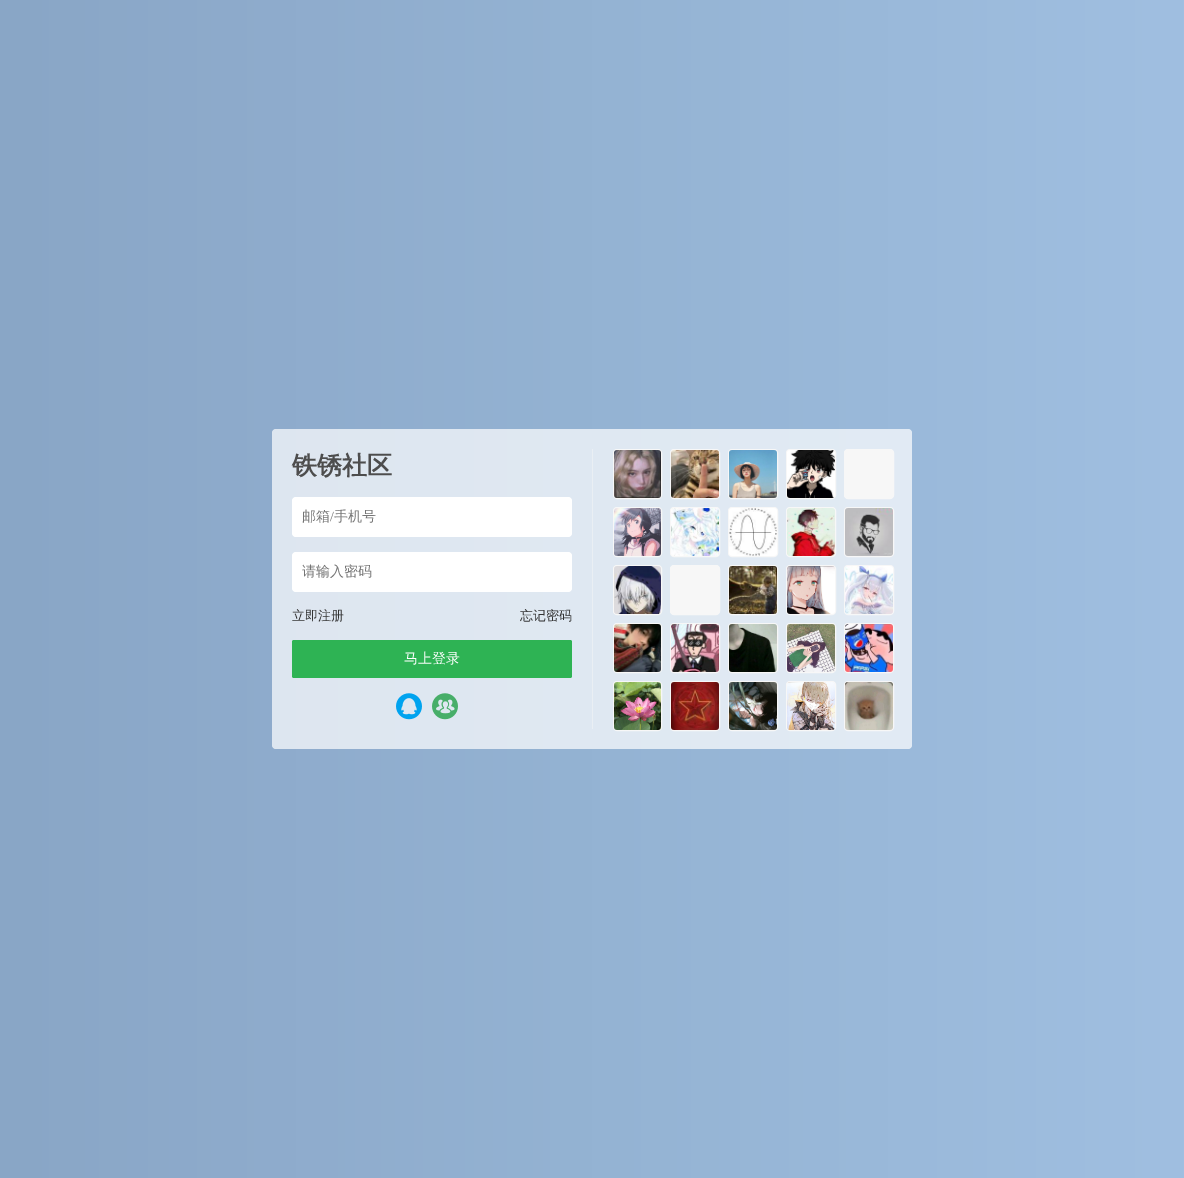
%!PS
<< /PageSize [1184 1178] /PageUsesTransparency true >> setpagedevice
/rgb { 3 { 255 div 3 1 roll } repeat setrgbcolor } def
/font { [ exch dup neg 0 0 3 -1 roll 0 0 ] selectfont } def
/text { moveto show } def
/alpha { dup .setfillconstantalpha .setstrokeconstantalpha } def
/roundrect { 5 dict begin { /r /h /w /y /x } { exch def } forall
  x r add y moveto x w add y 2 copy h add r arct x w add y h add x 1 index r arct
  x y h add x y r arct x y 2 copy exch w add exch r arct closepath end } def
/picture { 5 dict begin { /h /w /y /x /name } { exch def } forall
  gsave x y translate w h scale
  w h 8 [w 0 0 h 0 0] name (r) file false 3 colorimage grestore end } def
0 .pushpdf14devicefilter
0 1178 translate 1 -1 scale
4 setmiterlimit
255 255 255 rgb
0 0 1184 1178 rectfill
gsave 0 0 moveto 1184 0 rlineto 0 1178 rlineto -1184 0 rlineto closepath clip newpath
<< /ShadingType 2 /ColorSpace /DeviceRGB /Coords [0 589 1184 589] /Extend [true true] /Function << /FunctionType 2 /Domain [0 1] /C0 [0.537 0.651 0.776] /C1 [0.627 0.749 0.882] /N 1 >> >> shfill grestore
0.7 alpha
272 429 640 320 4 roundrect fill
1 alpha
234 239 244 rgb
592 449 1 280 rectfill
255 255 255 rgb
292 497 280 40 4 roundrect fill
292 552 280 40 4 roundrect fill
46 179 84 rgb
292 640 280 38 2 roundrect fill
(img_01.rgb) 396 693 26 27 picture
(img_02.rgb) 432 693 26 27 picture
247 247 247 rgb
613.5 449.5 48 49 3.5 roundrect stroke
(img_03.rgb) 614 450 47 48 picture
670.5 449.5 49 49 3.5 roundrect stroke
(img_04.rgb) 671 450 48 48 picture
728.5 449.5 49 49 3.5 roundrect stroke
(img_05.rgb) 729 450 48 48 picture
786.5 449.5 49 49 3.5 roundrect stroke
(img_06.rgb) 787 450 48 48 picture
844.5 449.5 49 49 3.5 roundrect gsave fill grestore
stroke
613.5 507.5 48 49 3.5 roundrect stroke
(img_07.rgb) 614 508 47 48 picture
670.5 507.5 49 49 3.5 roundrect stroke
(img_08.rgb) 671 508 48 48 picture
728.5 507.5 49 49 3.5 roundrect stroke
(img_09.rgb) 729 508 48 48 picture
786.5 507.5 49 49 3.5 roundrect stroke
(img_10.rgb) 787 508 48 48 picture
844.5 507.5 49 49 3.5 roundrect stroke
(img_11.rgb) 845 508 48 48 picture
613.5 565.5 48 49 3.5 roundrect stroke
(img_12.rgb) 614 566 47 48 picture
670.5 565.5 49 49 3.5 roundrect gsave fill grestore
stroke
728.5 565.5 49 49 3.5 roundrect stroke
(img_13.rgb) 729 566 48 48 picture
786.5 565.5 49 49 3.5 roundrect stroke
(img_14.rgb) 787 566 48 48 picture
844.5 565.5 49 49 3.5 roundrect stroke
(img_15.rgb) 845 566 48 48 picture
613.5 623.5 48 49 3.5 roundrect stroke
(img_16.rgb) 614 624 47 48 picture
670.5 623.5 49 49 3.5 roundrect stroke
(img_17.rgb) 671 624 48 48 picture
728.5 623.5 49 49 3.5 roundrect stroke
(img_18.rgb) 729 624 48 48 picture
786.5 623.5 49 49 3.5 roundrect stroke
(img_19.rgb) 787 624 48 48 picture
844.5 623.5 49 49 3.5 roundrect stroke
(img_20.rgb) 845 624 48 48 picture
613.5 681.5 48 49 3.5 roundrect stroke
(img_21.rgb) 614 682 47 48 picture
670.5 681.5 49 49 3.5 roundrect stroke
(img_22.rgb) 671 682 48 48 picture
728.5 681.5 49 49 3.5 roundrect stroke
(img_23.rgb) 729 682 48 48 picture
786.5 681.5 49 49 3.5 roundrect stroke
(img_24.rgb) 787 682 48 48 picture
844.5 681.5 49 49 3.5 roundrect stroke
(img_25.rgb) 845 682 48 48 picture
/WenQuanYiZenHei-Bold 25 font
77 77 77 rgb
(铁锈社区) 292 474 text
/WenQuanYiZenHei-Medium 14 font
117 117 117 rgb
(邮箱) 302 521 text
/LiberationSerif-Regular 14 font
(/) 330 521 text
/WenQuanYiZenHei-Medium 14 font
(手机号) 334 521 text
(请输入密码) 302 576 text
/WenQuanYiZenHei-Medium 13 font
51 51 51 rgb
(立即注册) 292 620 text
(忘记密码) 520 620 text
/WenQuanYiZenHei-Medium 14 font
255 255 255 rgb
(马上登录) 404 663 text
.poppdf14devicefilter showpage
